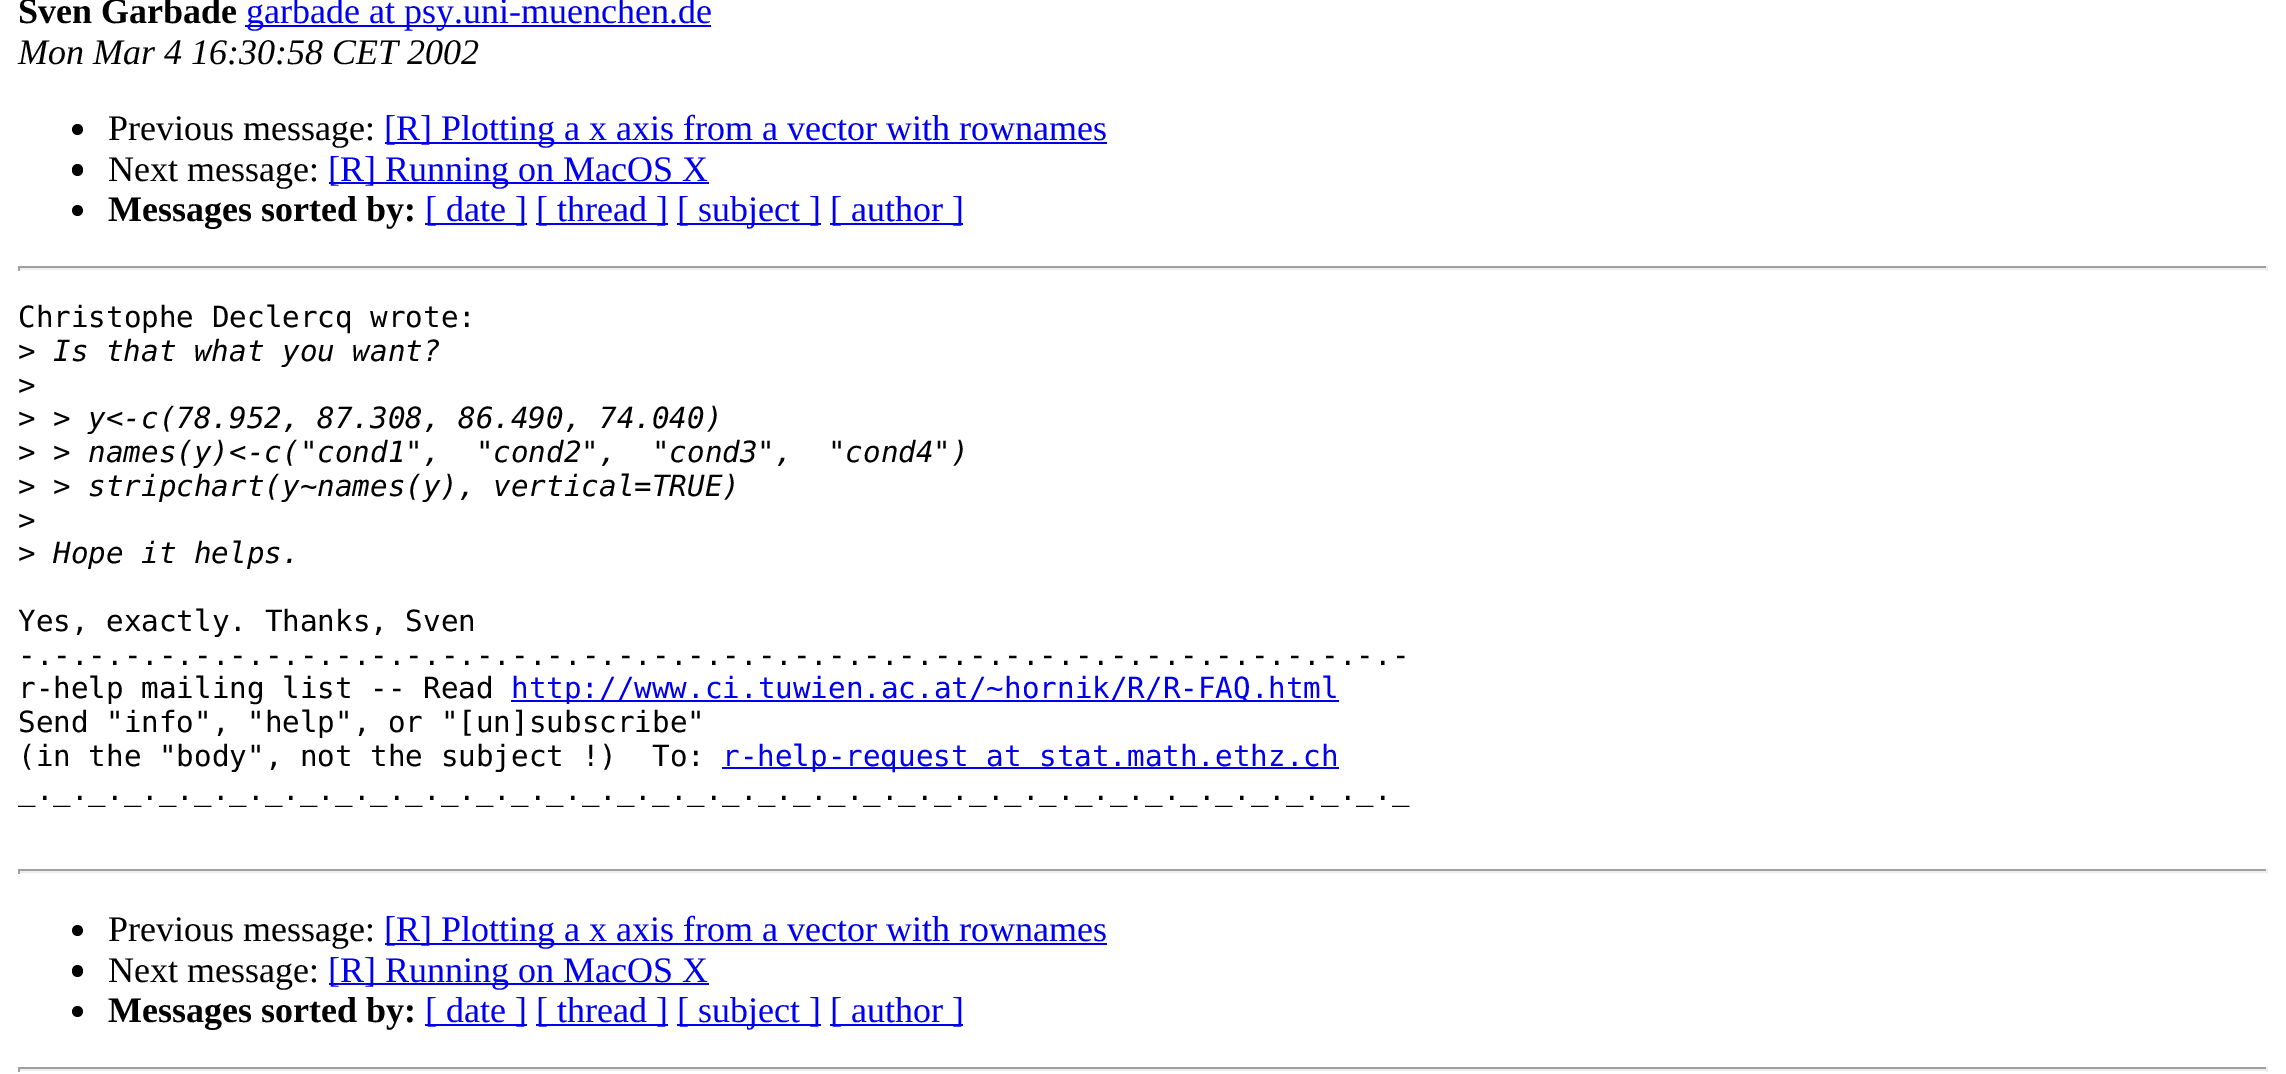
%!PS
<< /PageSize [2286 1074] >> setpagedevice
/rgb { 3 { 255 div 3 1 roll } repeat setrgbcolor } def
/font { [ exch dup neg 0 0 3 -1 roll 0 0 ] selectfont } def
/text { moveto show } def
/circle { newpath 0 360 arc closepath } def
/roundrect { 5 dict begin { /r /h /w /y /x } { exch def } forall
  x r add y moveto x w add y 2 copy h add r arct x w add y h add x 1 index r arct
  x y h add x y r arct x y 2 copy exch w add exch r arct closepath end } def
0 1074 translate 1 -1 scale
4 setmiterlimit
255 255 255 rgb
0 0 2286 1074 rectfill
0 0 238 rgb
245 25 466 2 rectfill
0 0 0 rgb
77.5 129.5 5.5 circle fill
0 0 238 rgb
385 142 722 2 rectfill
0 0 0 rgb
72 164 11 12 5.5 roundrect fill
0 0 238 rgb
329 182 380 2 rectfill
0 0 0 rgb
77.5 210.5 5.5 circle fill
0 0 238 rgb
425 223 102 2 rectfill
536 223 132 2 rectfill
677 223 144 2 rectfill
830 223 133 2 rectfill
159 159 159 rgb
18 266 2250 2 rectfill
238 238 238 rgb
2266 266 2 5 rectfill
18 268 2250 2 rectfill
159 159 159 rgb
18 266 2 5 rectfill
0 0 238 rgb
511 700 828 2 rectfill
722 767 617 2 rectfill
159 159 159 rgb
18 869 2250 2 rectfill
238 238 238 rgb
2266 869 2 5 rectfill
18 871 2250 2 rectfill
159 159 159 rgb
18 869 2 5 rectfill
0 0 0 rgb
77.5 930.5 5.5 circle fill
0 0 238 rgb
385 943 722 2 rectfill
0 0 0 rgb
72 965 11 12 5.5 roundrect fill
0 0 238 rgb
329 983 380 2 rectfill
0 0 0 rgb
77.5 1011.5 5.5 circle fill
0 0 238 rgb
425 1024 102 2 rectfill
536 1024 132 2 rectfill
677 1024 144 2 rectfill
830 1024 133 2 rectfill
159 159 159 rgb
18 1067 2250 2 rectfill
238 238 238 rgb
2266 1067 2 5 rectfill
18 1069 2250 2 rectfill
159 159 159 rgb
18 1067 2 5 rectfill
/LiberationSerif-Bold 36 font
0 0 0 rgb
(Sven Garbade) 18 23 text
/LiberationSerif-Regular 36 font
0 0 238 rgb
(garbade at psy.uni-muenchen.de) 246 23 text
/LiberationSerif-Italic 36 font
0 0 0 rgb
(Mon Mar 4 16:30:58 CET 2002) 18 64 text
/LiberationSerif-Regular 36 font
(Previous message:) 108 140 text
0 0 238 rgb
([R] Plotting a x axis from a vector with rownames) 384 140 text
0 0 0 rgb
(Next message:) 108 181 text
0 0 238 rgb
([R] Running on MacOS X) 328 181 text
/LiberationSerif-Bold 36 font
0 0 0 rgb
(Messages sorted by:) 108 221 text
/LiberationSerif-Regular 36 font
0 0 238 rgb
([ date ]) 425 221 text
([ thread ]) 536 221 text
([ subject ]) 677 221 text
([ author ]) 830 221 text
/DejaVuSansMono-Regular 29.25 font
0 0 0 rgb
(Christophe Declercq wrote:) 18 327 text
(>) 18 361 text
/DejaVuSansMono-Italic 29.25 font
(Is that what you want?) 53 361 text
/DejaVuSansMono-Regular 29.25 font
(>) 18 395 text
(>) 18 428 text
/DejaVuSansMono-Italic 29.25 font
(> y<-c\(78.952, 87.308, 86.490, 74.040\)) 53 428 text
/DejaVuSansMono-Regular 29.25 font
(>) 18 462 text
/DejaVuSansMono-Italic 29.25 font
(> names\(y\)<-c\("cond1",  "cond2",  "cond3",  "cond4"\)) 53 462 text
/DejaVuSansMono-Regular 29.25 font
(>) 18 496 text
/DejaVuSansMono-Italic 29.25 font
(> stripchart\(y~names\(y\), vertical=TRUE\)) 53 496 text
/DejaVuSansMono-Regular 29.25 font
(>) 18 530 text
(>) 18 563 text
/DejaVuSansMono-Italic 29.25 font
(Hope it helps.) 53 563 text
/DejaVuSansMono-Regular 29.25 font
(Yes, exactly. Thanks, Sven) 18 631 text
(-.-.-.-.-.-.-.-.-.-.-.-.-.-.-.-.-.-.-.-.-.-.-.-.-.-.-.-.-.-.-.-.-.-.-.-.-.-.-.-) 18 665 text
(r-help mailing list -- Read) 18 698 text
0 0 238 rgb
(http://www.ci.tuwien.ac.at/~hornik/R/R-FAQ.html) 511 698 text
0 0 0 rgb
(Send "info", "help", or "[un]subscribe") 18 732 text
(\(in the "body", not the subject !\)  To:) 18 766 text
0 0 238 rgb
(r-help-request at stat.math.ethz.ch) 722 766 text
0 0 0 rgb
(_._._._._._._._._._._._._._._._._._._._._._._._._._._._._._._._._._._._._._._._) 18 800 text
/LiberationSerif-Regular 36 font
(Previous message:) 108 941 text
0 0 238 rgb
([R] Plotting a x axis from a vector with rownames) 384 941 text
0 0 0 rgb
(Next message:) 108 982 text
0 0 238 rgb
([R] Running on MacOS X) 328 982 text
/LiberationSerif-Bold 36 font
0 0 0 rgb
(Messages sorted by:) 108 1022 text
/LiberationSerif-Regular 36 font
0 0 238 rgb
([ date ]) 425 1022 text
([ thread ]) 536 1022 text
([ subject ]) 677 1022 text
([ author ]) 830 1022 text
showpage
